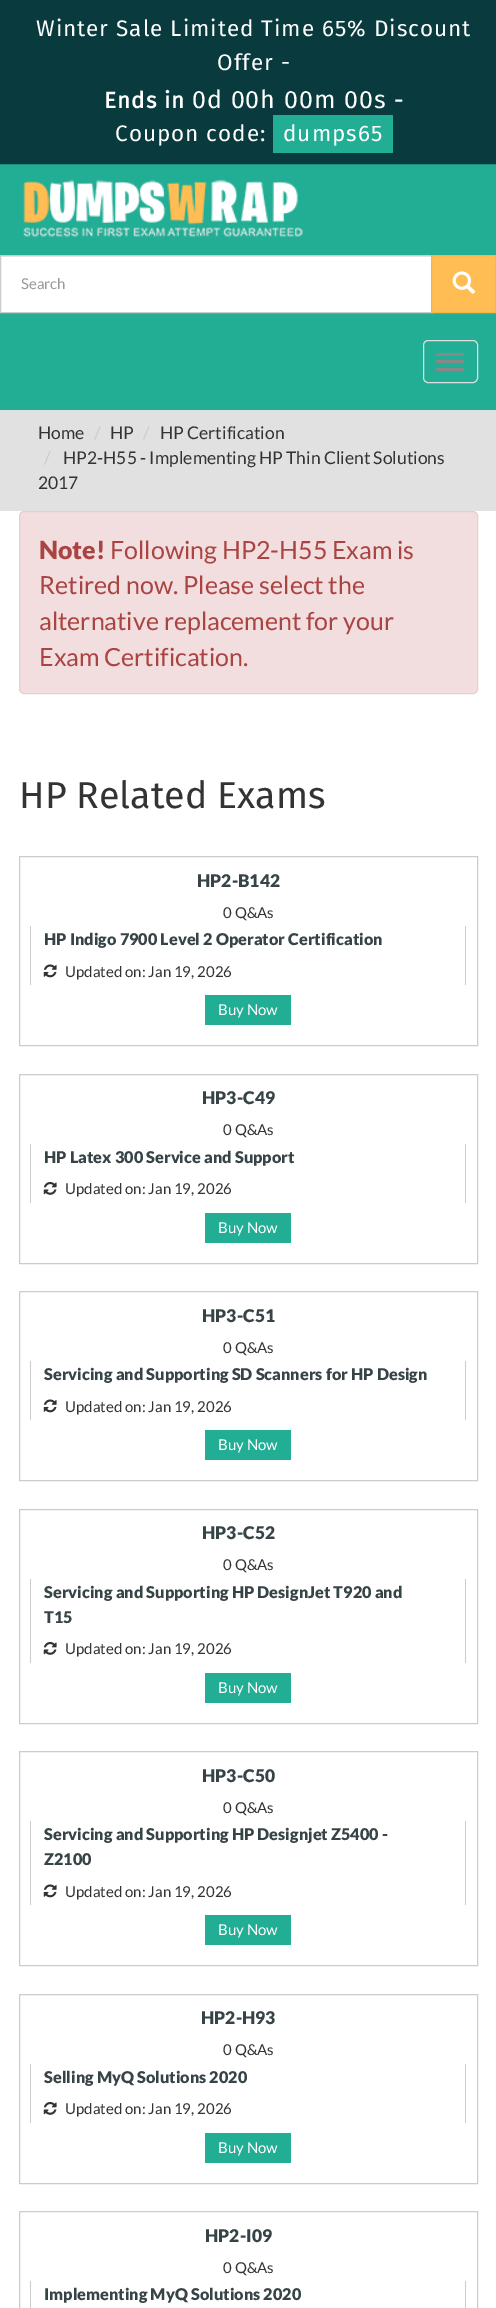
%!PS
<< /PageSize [496 2308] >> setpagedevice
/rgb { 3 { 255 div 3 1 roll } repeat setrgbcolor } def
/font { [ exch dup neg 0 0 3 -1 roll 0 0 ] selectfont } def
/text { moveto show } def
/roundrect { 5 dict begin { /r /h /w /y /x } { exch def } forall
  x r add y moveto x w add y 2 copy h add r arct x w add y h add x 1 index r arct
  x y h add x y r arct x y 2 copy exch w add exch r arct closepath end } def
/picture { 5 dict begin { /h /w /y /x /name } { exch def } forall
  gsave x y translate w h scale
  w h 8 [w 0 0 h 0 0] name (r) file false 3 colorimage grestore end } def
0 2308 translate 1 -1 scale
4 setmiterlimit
255 255 255 rgb
0 0 496 2308 rectfill
9 58 62 rgb
0 0 496 164 rectfill
25 143 122 rgb
0 164 496 1 rectfill
34 173 149 rgb
273 115 120 38 rectfill
0 165 496 245 rectfill
(img_01.rgb) 23 179 280 58 picture
255 255 255 rgb
1 257 430 55 rectfill
236 236 236 rgb
1 256 430 1 rectfill
204 204 204 rgb
0.5 255.5 432 57 rectstroke
255 189 83 rgb
431.5 255.5 moveto 64 0 rlineto 0 57 rlineto -64 0 rlineto closepath gsave fill grestore
249 180 68 rgb
stroke
(img_02.rgb) 452 271 24 23 picture
221 221 221 rgb
423.5 340.5 54 42 4.5 roundrect stroke
136 136 136 rgb
436 353 28 3 1.5 roundrect fill
436 360 28 3 1.5 roundrect fill
436 368 28 3 1.5 roundrect fill
225 225 225 rgb
0 410 496 101 rectfill
242 222 222 rgb
19.5 511.5 458 182 4.5 roundrect gsave fill grestore
235 204 209 rgb
stroke
204 204 204 rgb
19.5 856.5 458 189 rectstroke
465 926 1 59 rectfill
30 926 1 59 rectfill
(img_03.rgb) 43 964 14 14 picture
34 173 149 rgb
205 995 86 30 rectfill
204 204 204 rgb
19.5 1074.5 458 189 rectstroke
465 1144 1 59 rectfill
30 1144 1 59 rectfill
(img_04.rgb) 43 1182 14 13 picture
34 173 149 rgb
205 1213 86 30 rectfill
204 204 204 rgb
19.5 1291.5 458 189 rectstroke
465 1361 1 59 rectfill
30 1361 1 59 rectfill
(img_03.rgb) 43 1399 14 14 picture
34 173 149 rgb
205 1430 86 30 rectfill
204 204 204 rgb
19.5 1509.5 458 214 rectstroke
465 1579 1 84 rectfill
30 1579 1 84 rectfill
(img_04.rgb) 43 1642 14 13 picture
34 173 149 rgb
205 1673 86 30 rectfill
204 204 204 rgb
19.5 1751.5 458 214 rectstroke
465 1821 1 84 rectfill
30 1821 1 84 rectfill
(img_03.rgb) 43 1884 14 14 picture
34 173 149 rgb
205 1915 86 30 rectfill
204 204 204 rgb
19.5 1994.5 458 189 rectstroke
465 2064 1 59 rectfill
30 2064 1 59 rectfill
(img_04.rgb) 43 2102 14 13 picture
34 173 149 rgb
205 2133 86 30 rectfill
204 204 204 rgb
19.5 2211.5 458 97 rectstroke
465 2281 1 27 rectfill
30 2281 1 27 rectfill
/FiraSans-Regular 22.5 font
255 255 255 rgb
36 36 moveto 1 0 (Winter Sale Limited Time 65% Discount) ashow
217 70 moveto 1 0 (Offer -) ashow
/FiraSans-Bold 22.5 font
104 108 moveto 1 0 (Ends in) ashow
/FiraSans-Regular 25 font
192 108 moveto 1 0 (0d 00h 00m 00s) ashow
/FiraSans-Bold 22.5 font
394 108 moveto 1 0 (-) ashow
/FiraSans-Regular 22.5 font
115 141 moveto 1 0 (Coupon code:) ashow
283 141 moveto 1 0 (dumps65) ashow
/Lato-Regular 15 font
153 153 153 rgb
(Search) 21 289 text
/Lato-Regular 17.5 font
51 51 51 rgb
(Home) 38 439 text
204 204 204 rgb
(/) 94 439 text
51 51 51 rgb
(HP) 110 439 text
204 204 204 rgb
(/) 143 439 text
51 51 51 rgb
(HP Certification) 160 439 text
204 204 204 rgb
(/) 44 464 text
51 51 51 rgb
(HP2-H55 - Implementing HP Thin Client Solutions) 63 464 text
(2017) 38 489 text
/Lato-Black 25 font
169 68 66 rgb
(Note!) 39 559 text
/Lato-Regular 25 font
(Following HP2-H55 Exam is) 110 559 text
(Retired now. Please select the) 39 594 text
(alternative replacement for your) 39 630 text
(Exam Certification.) 39 666 text
/FiraSans-Regular 37.5 font
51 51 51 rgb
(HP Related Exams) 19 808 text
/Lato-Black 17.5 font
54 67 71 rgb
(HP2-B142) 197 887 text
/Lato-Regular 15 font
51 51 51 rgb
(0 Q&As) 223 918 text
/Lato-Black 16.25 font
54 67 71 rgb
(HP Indigo 7900 Level 2 Operator Certification) 44 945 text
/Lato-Regular 15 font
51 51 51 rgb
(Updated on: Jan 19, 2026) 65 977 text
255 255 255 rgb
(Buy Now) 218 1015 text
/Lato-Black 17.5 font
54 67 71 rgb
(HP3-C49) 202 1104 text
/Lato-Regular 15 font
51 51 51 rgb
(0 Q&As) 223 1135 text
/Lato-Black 16.25 font
54 67 71 rgb
(HP Latex 300 Service and Support) 44 1163 text
/Lato-Regular 15 font
51 51 51 rgb
(Updated on: Jan 19, 2026) 65 1194 text
255 255 255 rgb
(Buy Now) 218 1233 text
/Lato-Black 17.5 font
54 67 71 rgb
(HP3-C51) 202 1322 text
/Lato-Regular 15 font
51 51 51 rgb
(0 Q&As) 223 1353 text
/Lato-Black 16.25 font
54 67 71 rgb
(Servicing and Supporting SD Scanners for HP Design) 44 1380 text
/Lato-Regular 15 font
51 51 51 rgb
(Updated on: Jan 19, 2026) 65 1412 text
255 255 255 rgb
(Buy Now) 218 1450 text
/Lato-Black 17.5 font
54 67 71 rgb
(HP3-C52) 202 1539 text
/Lato-Regular 15 font
51 51 51 rgb
(0 Q&As) 223 1570 text
/Lato-Black 16.25 font
54 67 71 rgb
(Servicing and Supporting HP DesignJet T920 and) 44 1598 text
(T15) 44 1623 text
/Lato-Regular 15 font
51 51 51 rgb
(Updated on: Jan 19, 2026) 65 1654 text
255 255 255 rgb
(Buy Now) 218 1693 text
/Lato-Black 17.5 font
54 67 71 rgb
(HP3-C50) 202 1782 text
/Lato-Regular 15 font
51 51 51 rgb
(0 Q&As) 223 1813 text
/Lato-Black 16.25 font
54 67 71 rgb
(Servicing and Supporting HP Designjet Z5400 -) 44 1840 text
(Z2100) 44 1865 text
/Lato-Regular 15 font
51 51 51 rgb
(Updated on: Jan 19, 2026) 65 1897 text
255 255 255 rgb
(Buy Now) 218 1935 text
/Lato-Black 17.5 font
54 67 71 rgb
(HP2-H93) 201 2024 text
/Lato-Regular 15 font
51 51 51 rgb
(0 Q&As) 223 2055 text
/Lato-Black 16.25 font
54 67 71 rgb
(Selling MyQ Solutions 2020) 44 2083 text
/Lato-Regular 15 font
51 51 51 rgb
(Updated on: Jan 19, 2026) 65 2114 text
255 255 255 rgb
(Buy Now) 218 2153 text
/Lato-Black 17.5 font
54 67 71 rgb
(HP2-I09) 205 2242 text
/Lato-Regular 15 font
51 51 51 rgb
(0 Q&As) 223 2273 text
/Lato-Black 16.25 font
54 67 71 rgb
(Implementing MyQ Solutions 2020) 44 2300 text
showpage
